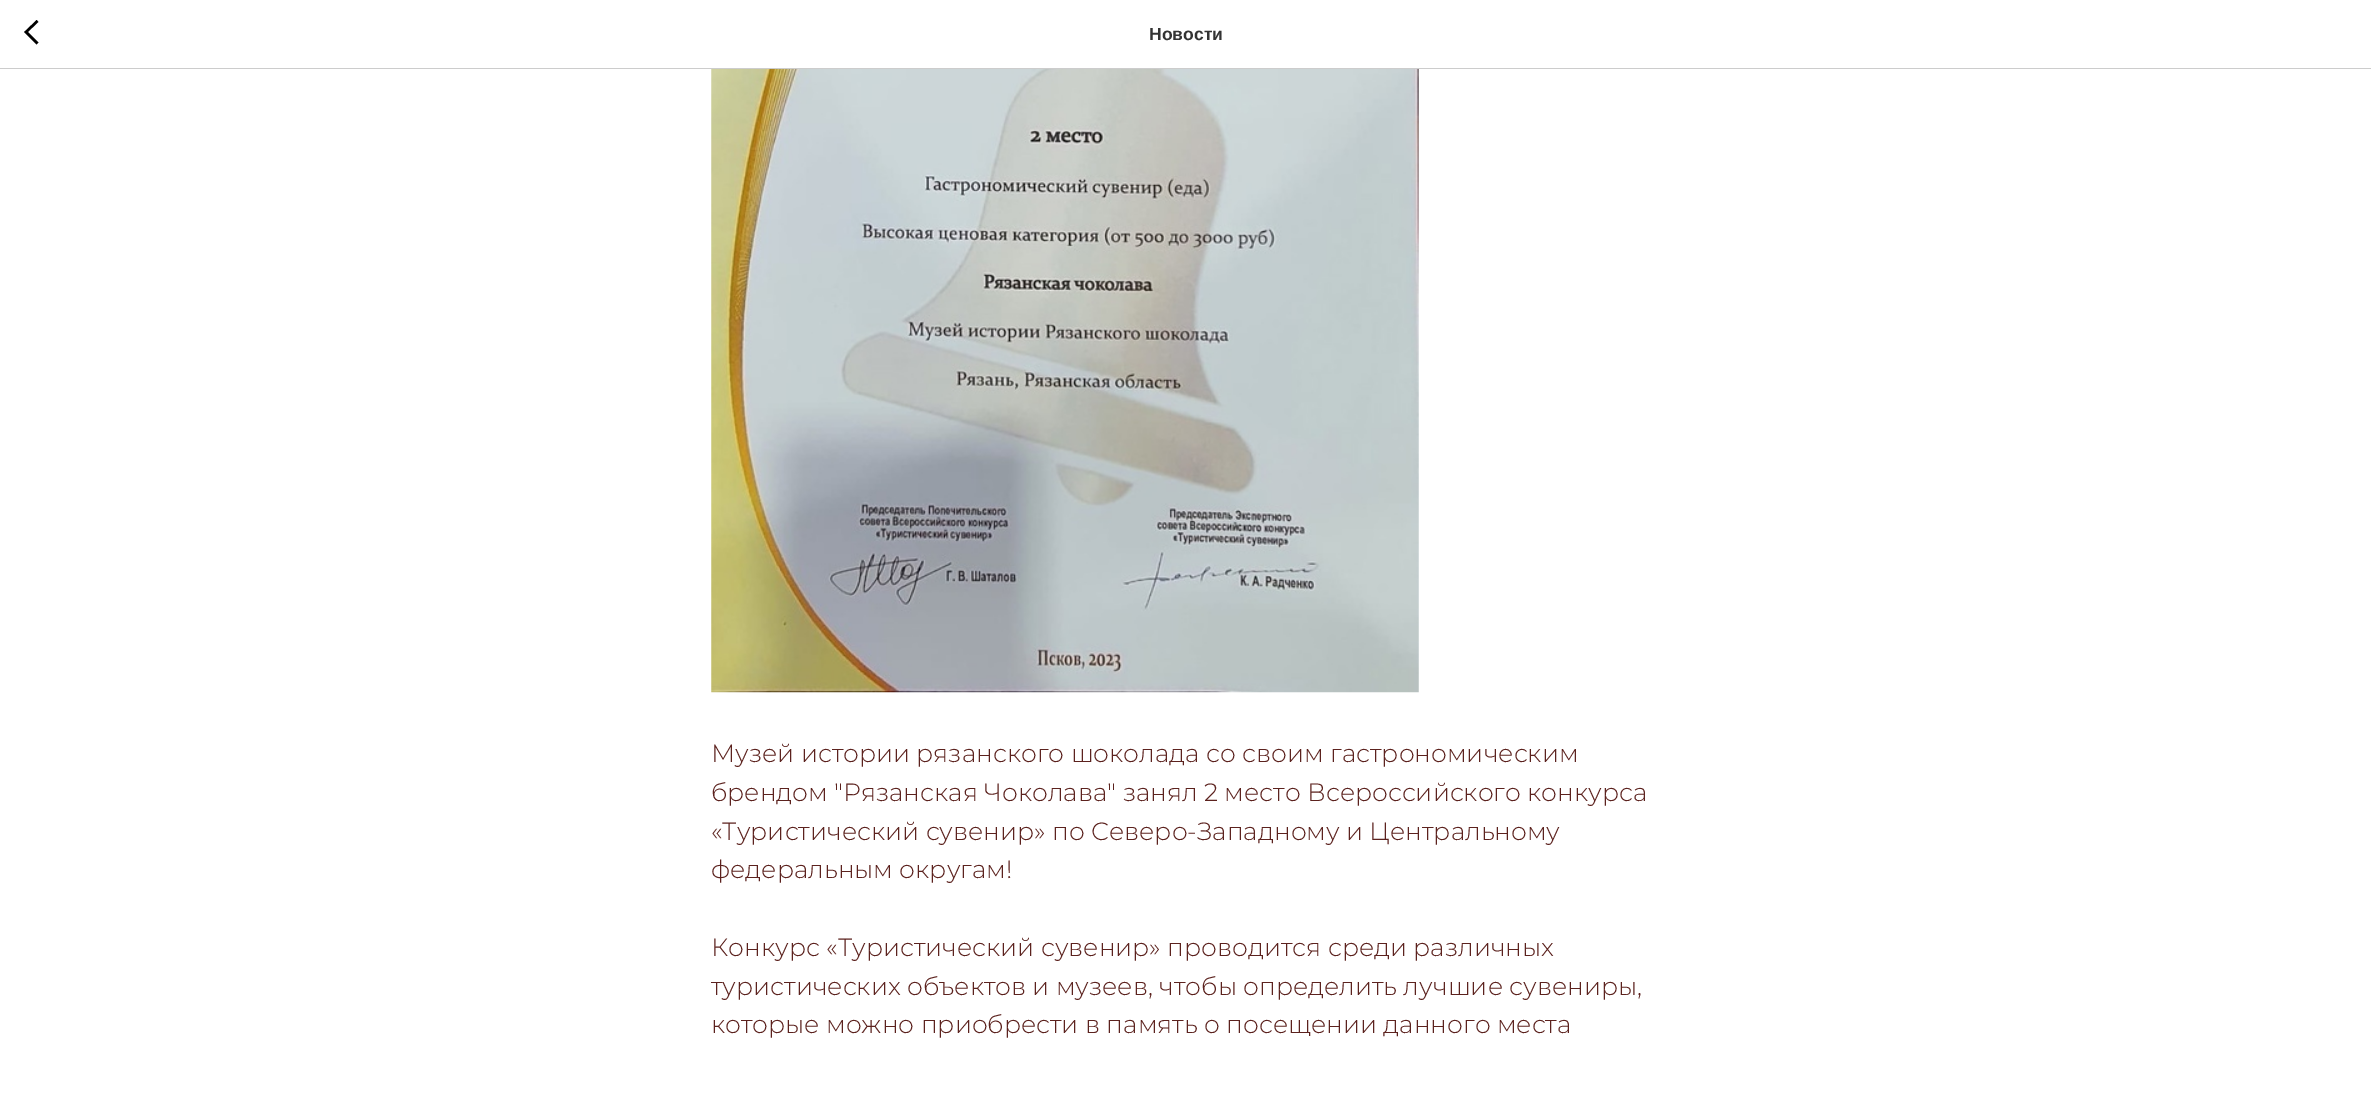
%!PS
<< /PageSize [2371 1100] >> setpagedevice
/rgb { 3 { 255 div 3 1 roll } repeat setrgbcolor } def
/font { [ exch dup neg 0 0 3 -1 roll 0 0 ] selectfont } def
/text { moveto show } def
/picture { 5 dict begin { /h /w /y /x /name } { exch def } forall
  gsave x y translate w h scale
  w h 8 [w 0 0 h 0 0] name (r) file false 3 colorimage grestore end } def
0 1100 translate 1 -1 scale
4 setmiterlimit
255 255 255 rgb
0 0 2371 1100 rectfill
204 204 204 rgb
0 68 2371 1 rectfill
0 0 0 rgb
2.5 setlinewidth
37.5 43.5 moveto -11.5 -11.5 rlineto 11.5 -11 rlineto stroke
(img_01.rgb) 711 69 708 624 picture
/LiberationSans-Bold 17.5 font
51 51 51 rgb
(Новости) 1149 40 text
/Montserrat-Light 25 font
92 34 30 rgb
(Музей истории рязанского шоколада со своим гастрономическим) 711 762 text
(брендом "Рязанская Чоколава" занял 2 место Всероссийского конкурса) 711 801 text
(«Туристический сувенир» по Северо-Западному и Центральному) 711 840 text
(федеральным округам!) 711 878 text
(Конкурс «Туристический сувенир» проводится среди различных) 711 956 text
(туристических объектов и музеев, чтобы определить лучшие сувениры,) 711 995 text
(которые можно приобрести в память о посещении данного места) 711 1033 text
showpage
